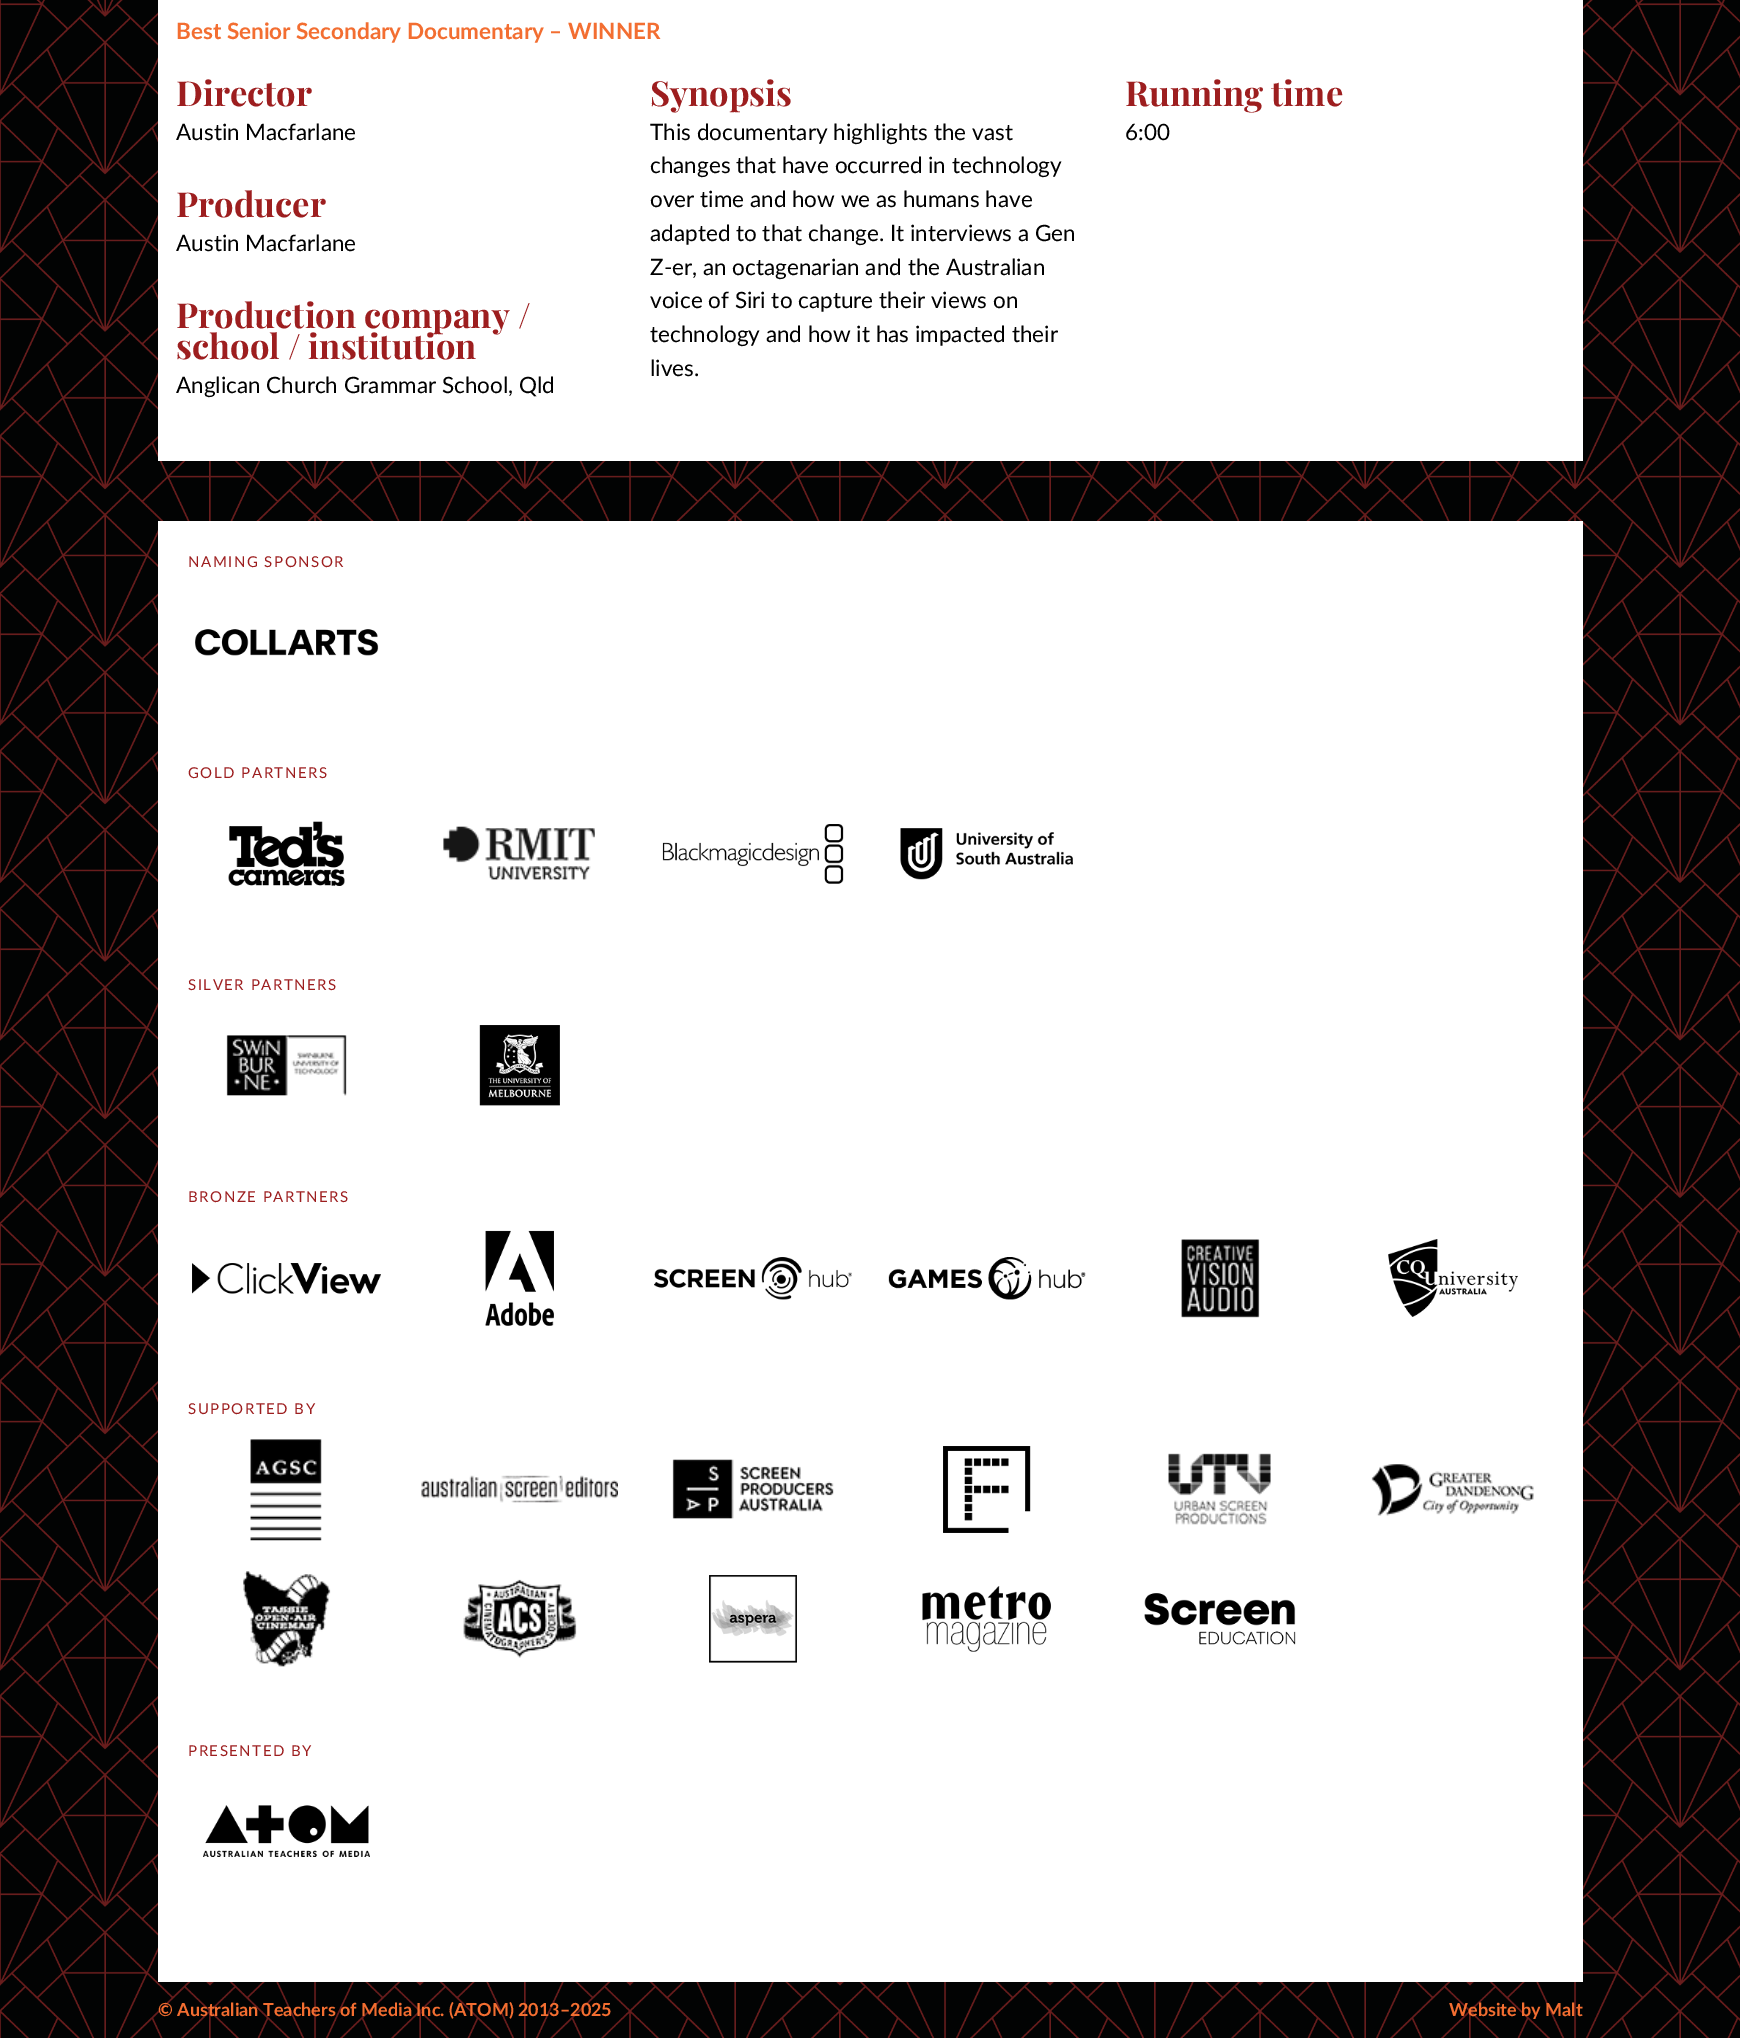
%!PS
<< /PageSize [1740 2038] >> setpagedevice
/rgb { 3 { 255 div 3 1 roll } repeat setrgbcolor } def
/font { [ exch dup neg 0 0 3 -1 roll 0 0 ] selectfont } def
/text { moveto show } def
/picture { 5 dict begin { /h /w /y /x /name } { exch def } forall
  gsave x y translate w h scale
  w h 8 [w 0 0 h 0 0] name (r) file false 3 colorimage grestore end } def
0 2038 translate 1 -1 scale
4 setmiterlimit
255 255 255 rgb
0 0 1740 2038 rectfill
(img_01.rgb) 0 0 1740 2038 picture
158 0 1425 461 rectfill
158 521 1425 1461 rectfill
(img_02.rgb) 195 629 184 27 picture
(img_03.rgb) 228 821 117 65 picture
(img_04.rgb) 443 826 152 54 picture
(img_05.rgb) 662 824 182 60 picture
(img_06.rgb) 900 828 173 52 picture
(img_07.rgb) 226 1035 121 61 picture
(img_08.rgb) 479 1025 81 81 picture
(img_09.rgb) 192 1263 189 31 picture
(img_10.rgb) 485 1230 69 96 picture
(img_11.rgb) 654 1257 198 43 picture
(img_12.rgb) 888 1257 198 43 picture
(img_13.rgb) 1181 1239 79 79 picture
(img_14.rgb) 1388 1239 130 78 picture
(img_15.rgb) 250 1439 72 102 picture
(img_16.rgb) 421 1475 197 28 picture
(img_17.rgb) 672 1459 162 60 picture
(img_18.rgb) 943 1446 88 87 picture
(img_19.rgb) 1168 1453 103 72 picture
(img_20.rgb) 1371 1464 163 52 picture
(img_21.rgb) 243 1571 88 96 picture
(img_22.rgb) 463 1579 114 79 picture
(img_23.rgb) 709 1575 88 88 picture
(img_24.rgb) 922 1586 129 66 picture
(img_25.rgb) 1144 1593 152 52 picture
(img_26.rgb) 203 1805 167 52 picture
/Lato-Bold 22.5 font
243 110 49 rgb
(Best Senior Secondary Documentary – WINNER) 176 39 text
/PlayfairDisplay-Bold 34.5 font
157 30 31 rgb
(Director) 176 106 text
/Lato-Regular 22.5 font
0 0 0 rgb
(Austin Macfarlane) 176 140 text
/PlayfairDisplay-Bold 34.5 font
157 30 31 rgb
(Producer) 176 217 text
/Lato-Regular 22.5 font
0 0 0 rgb
(Austin Macfarlane) 176 251 text
/PlayfairDisplay-Bold 34.5 font
157 30 31 rgb
(Production company /) 176 328 text
(school / institution) 176 359 text
/Lato-Regular 22.5 font
0 0 0 rgb
(Anglican Church Grammar School, Qld) 176 393 text
/PlayfairDisplay-Bold 34.5 font
157 30 31 rgb
(Synopsis) 650 106 text
/Lato-Regular 22.5 font
0 0 0 rgb
(This documentary highlights the vast) 650 140 text
(changes that have occurred in technology) 650 173 text
(over time and how we as humans have) 650 207 text
(adapted to that change. It interviews a Gen) 650 241 text
(Z-er, an octagenarian and the Australian) 650 275 text
(voice of Siri to capture their views on) 650 308 text
(technology and how it has impacted their) 650 342 text
(lives.) 650 376 text
/PlayfairDisplay-Bold 34.5 font
157 30 31 rgb
(Running time) 1125 106 text
/Lato-Regular 22.5 font
0 0 0 rgb
(6:00) 1125 140 text
/Lato-Regular 15 font
157 30 31 rgb
188 567 moveto 1.5 0 (NAMING SPONSOR) ashow
188 778 moveto 1.5 0 (GOLD PARTNERS) ashow
188 990 moveto 1.5 0 (SILVER PARTNERS) ashow
188 1202 moveto 1.5 0 (BRONZE PARTNERS) ashow
188 1414 moveto 1.5 0 (SUPPORTED BY) ashow
188 1756 moveto 1.5 0 (PRESENTED BY) ashow
/Lato-Bold 18 font
243 110 49 rgb
(© Australian Teachers of Media Inc. \(ATOM\) 2013–2025) 158 2016 text
(Website by Malt) 1449 2016 text
showpage
